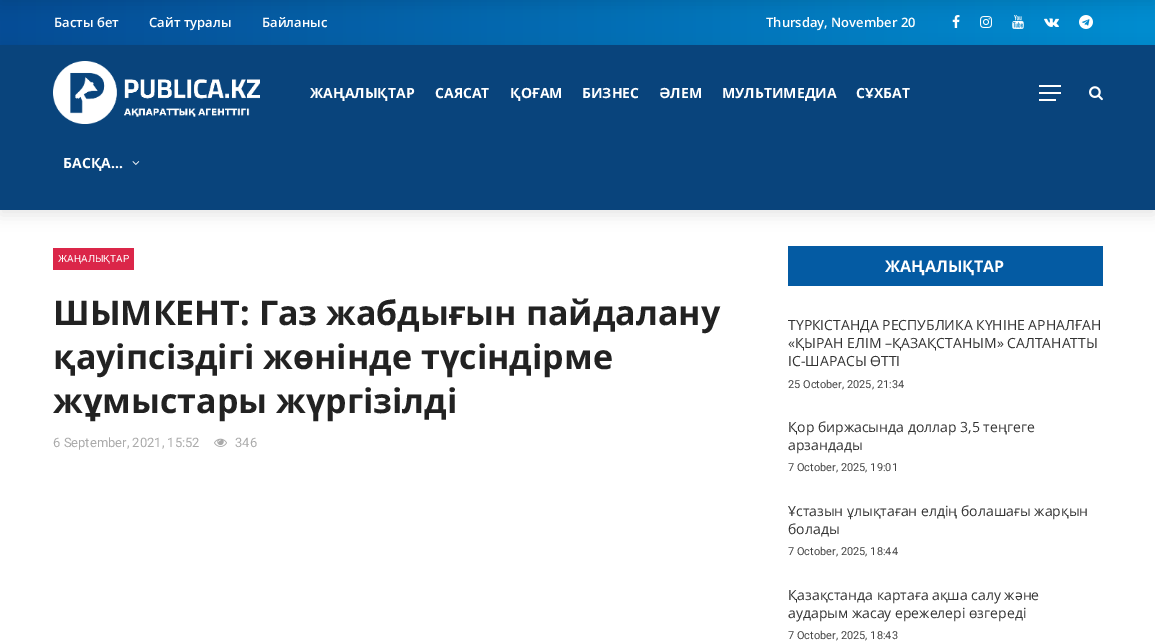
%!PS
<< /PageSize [1155 644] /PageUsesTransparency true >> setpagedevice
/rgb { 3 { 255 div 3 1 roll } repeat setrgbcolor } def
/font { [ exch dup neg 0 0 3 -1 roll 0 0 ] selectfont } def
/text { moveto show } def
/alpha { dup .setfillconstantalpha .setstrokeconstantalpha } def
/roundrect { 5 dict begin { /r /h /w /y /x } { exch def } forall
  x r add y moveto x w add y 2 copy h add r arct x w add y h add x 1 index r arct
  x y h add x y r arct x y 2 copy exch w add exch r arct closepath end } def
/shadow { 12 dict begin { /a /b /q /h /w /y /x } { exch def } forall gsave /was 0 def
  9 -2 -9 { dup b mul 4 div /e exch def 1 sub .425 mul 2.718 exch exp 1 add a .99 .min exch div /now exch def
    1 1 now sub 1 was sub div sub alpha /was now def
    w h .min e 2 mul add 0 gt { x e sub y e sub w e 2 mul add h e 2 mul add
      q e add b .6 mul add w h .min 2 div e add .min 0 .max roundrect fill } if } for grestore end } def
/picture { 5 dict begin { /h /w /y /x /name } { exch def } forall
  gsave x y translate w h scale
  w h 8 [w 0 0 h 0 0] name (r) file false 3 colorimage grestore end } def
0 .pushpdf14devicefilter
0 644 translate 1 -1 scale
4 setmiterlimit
255 255 255 rgb
0 0 1155 644 rectfill
gsave 0 0 moveto 1155 0 rlineto 0 45 rlineto -1155 0 rlineto closepath clip newpath
<< /ShadingType 2 /ColorSpace /DeviceRGB /Coords [0 23 1155 22] /Extend [true true] /Function << /FunctionType 2 /Domain [0 1] /C0 [0.024 0.298 0.588] /C1 [0 0.553 0.816] /N 1 >> >> shfill grestore
(img_01.rgb) 952 15 8 13 picture
(img_02.rgb) 980 16 12 12 picture
(img_03.rgb) 1012 15 12 14 picture
(img_04.rgb) 1044 18 15 9 picture
(img_05.rgb) 1079 15 14 14 picture
0 0 0 rgb
0 -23 1155 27 0 7.5 0.1 shadow
0 50 1155 165 0 7.5 0.1 shadow
9 68 124 rgb
0 45 1155 165 rectfill
(img_06.rgb) 53 61 207 63 picture
255 255 255 rgb
1039 85 22 2 rectfill
1039 92 22 2 rectfill
1039 99 17 2 rectfill
(img_07.rgb) 132 161 8 4 picture
(img_08.rgb) 1089 86 14 15 picture
219 38 73 rgb
53 248 81 22 rectfill
(img_09.rgb) 214 438 13 9 picture
4 91 163 rgb
788 246 315 40 rectfill
/OpenSans-SemiBold 13 font
255 255 255 rgb
(Басты бет) 54 27 text
(Сайт туралы) 149 27 text
(Байланыс) 262 27 text
(Thursday, November 20) 766 27 text
/OpenSans-Bold 14 font
(ЖАҢАЛЫҚТАР) 310 98 text
(САЯСАТ) 435 98 text
(ҚОҒАМ) 510 98 text
(БИЗНЕС) 582 98 text
(ӘЛЕМ) 659 98 text
(МУЛЬТИМЕДИА) 722 98 text
(СҰХБАТ) 856 98 text
(БАСҚА…) 63 168 text
/Roboto-Regular 10 font
(ЖАҢАЛЫҚТАР) 58 262 text
/OpenSans-Bold 34 font
34 34 34 rgb
(ШЫМКЕНТ: Газ жабдығын пайдалану) 53 325 text
(қауіпсіздігі жөнінде түсіндірме) 53 369 text
(жұмыстары жүргізілді) 53 413 text
/Roboto-Regular 13 font
170 170 170 rgb
(6 September, 2021, 15:52) 53 447 text
(346) 235 447 text
/OpenSans-Bold 16 font
255 255 255 rgb
(ЖАҢАЛЫҚТАР) 885 272 text
/OpenSans-Regular 14 font
51 51 51 rgb
(ТҮРКІСТАНДА РЕСПУБЛИКА КҮНІНЕ АРНАЛҒАН) 788 330 text
(«ҚЫРАН ЕЛІМ –ҚАЗАҚСТАНЫМ» САЛТАНАТТЫ) 788 348 text
(ІС-ШАРАСЫ ӨТТІ) 788 366 text
/Roboto-Regular 11 font
68 68 68 rgb
(25 October, 2025, 21:34) 788 388 text
/OpenSans-Regular 14 font
51 51 51 rgb
(Қор биржасында доллар 3,5 теңгеге) 788 432 text
(арзандады) 788 450 text
/Roboto-Regular 11 font
68 68 68 rgb
(7 October, 2025, 19:01) 788 471 text
/OpenSans-Regular 14 font
51 51 51 rgb
(Ұстазын ұлықтаған елдің болашағы жарқын) 788 516 text
(болады) 788 534 text
/Roboto-Regular 11 font
68 68 68 rgb
(7 October, 2025, 18:44) 788 555 text
/OpenSans-Regular 14 font
51 51 51 rgb
(Қазақстанда картаға ақша салу және) 788 600 text
(аударым жасау ережелері өзгереді) 788 618 text
/Roboto-Regular 11 font
68 68 68 rgb
(7 October, 2025, 18:43) 788 639 text
.poppdf14devicefilter showpage
